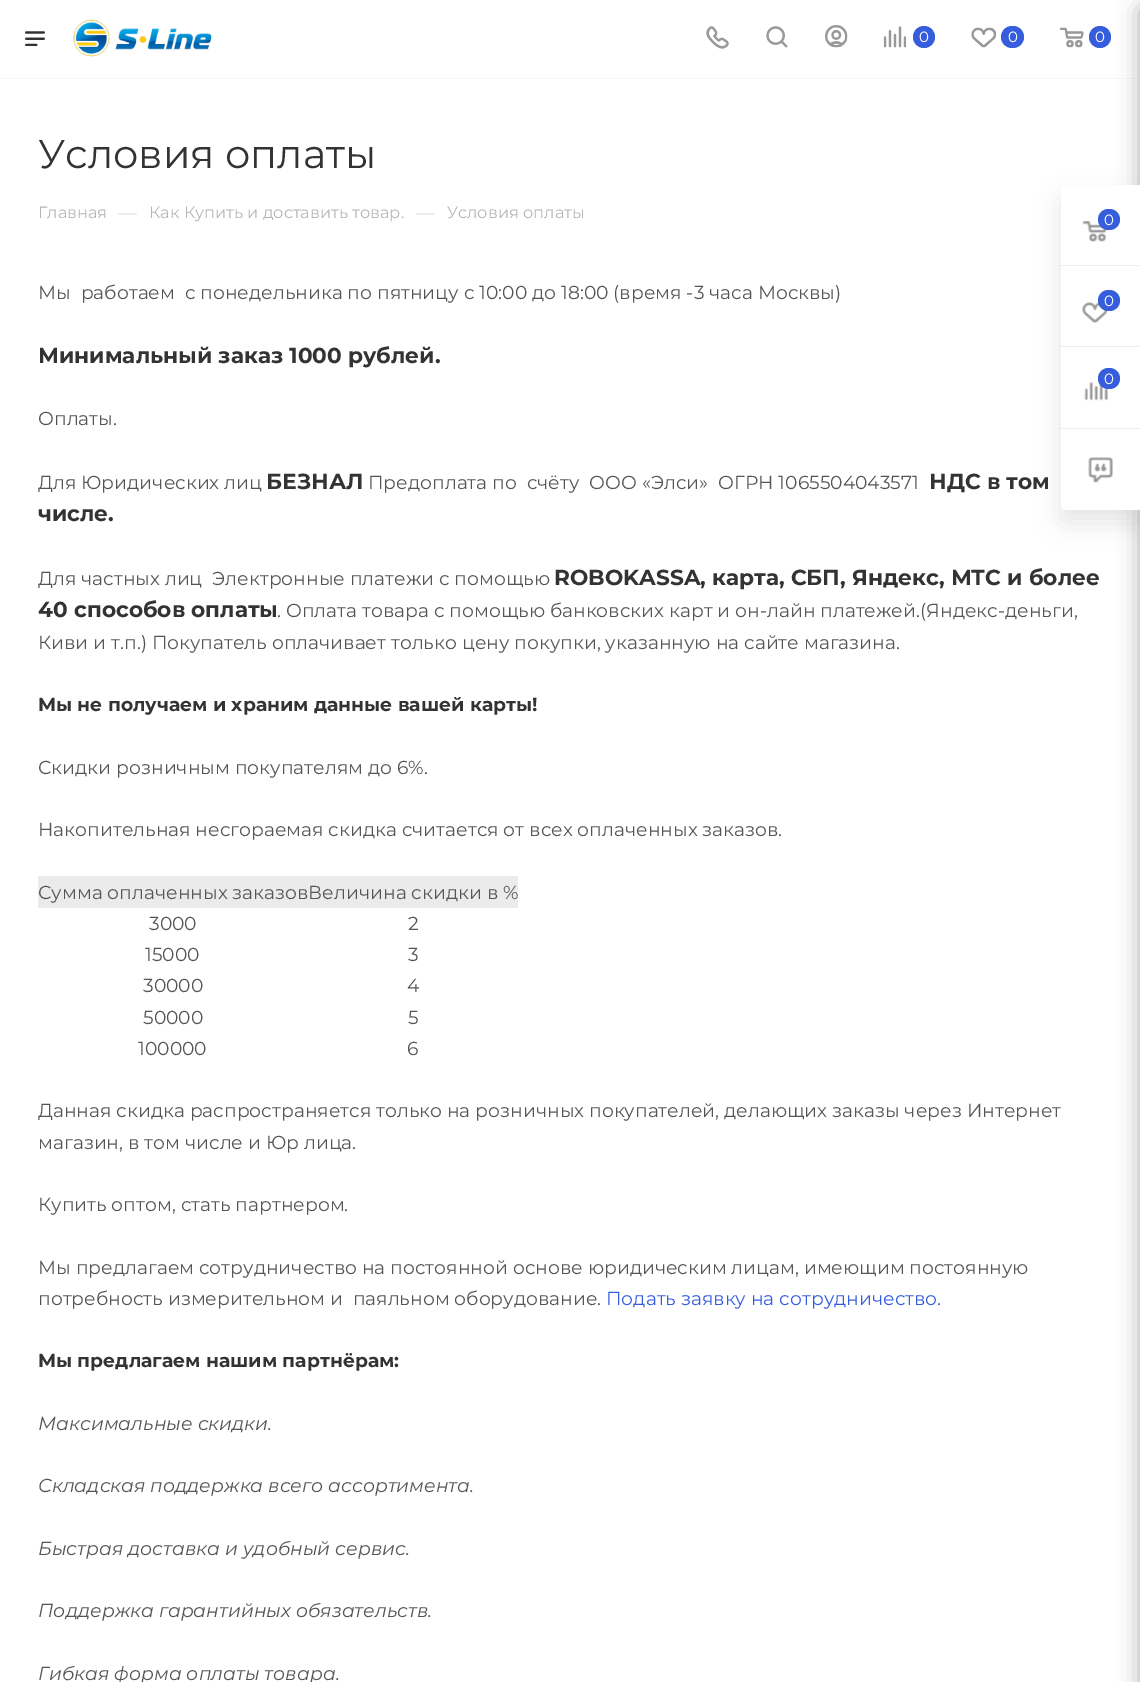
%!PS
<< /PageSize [1140 1682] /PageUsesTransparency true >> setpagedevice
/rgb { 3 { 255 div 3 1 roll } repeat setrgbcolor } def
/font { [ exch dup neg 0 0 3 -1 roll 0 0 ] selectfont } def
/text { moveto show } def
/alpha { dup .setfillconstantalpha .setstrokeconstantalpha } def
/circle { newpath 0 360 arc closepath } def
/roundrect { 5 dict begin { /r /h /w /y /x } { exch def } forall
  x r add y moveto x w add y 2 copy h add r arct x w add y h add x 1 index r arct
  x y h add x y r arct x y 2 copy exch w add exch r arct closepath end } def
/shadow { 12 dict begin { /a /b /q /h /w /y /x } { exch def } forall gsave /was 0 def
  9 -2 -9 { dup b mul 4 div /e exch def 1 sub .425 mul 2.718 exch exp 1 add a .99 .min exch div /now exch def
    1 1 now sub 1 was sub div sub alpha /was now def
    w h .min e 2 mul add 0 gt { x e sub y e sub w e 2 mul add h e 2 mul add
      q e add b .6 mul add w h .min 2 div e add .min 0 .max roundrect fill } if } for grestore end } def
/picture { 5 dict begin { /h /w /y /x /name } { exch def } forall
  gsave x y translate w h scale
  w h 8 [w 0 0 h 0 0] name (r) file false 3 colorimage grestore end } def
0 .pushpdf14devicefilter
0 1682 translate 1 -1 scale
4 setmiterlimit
255 255 255 rgb
0 0 1140 1682 rectfill
248 248 248 rgb
0 78 1140 1 rectfill
(img_01.rgb) 25 31 20 15 picture
(img_02.rgb) 73 19 139 38 picture
(img_03.rgb) 706 26 23 23 picture
(img_04.rgb) 766 26 22 22 picture
(img_05.rgb) 825 25 23 23 picture
(img_06.rgb) 883 26 24 22 picture
54 94 220 rgb
924 37 11 circle fill
(img_07.rgb) 971 27 26 21 picture
1001 26 23 22 11 roundrect fill
(img_08.rgb) 1060 27 24 21 picture
1100 37 11 circle fill
235 235 235 rgb
38 876 480 32 rectfill
44 44 44 rgb
1140 8 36 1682 2.5 11 0.4 shadow
0 0 0 rgb
1061 198 79 325 5 12.5 0.1 shadow
255 255 255 rgb
1066 185 moveto 74 0 rlineto 0 325 rlineto -74 0 rlineto -3 0 -5 -2 -5 -5 rcurveto 0 -315 rlineto 0 -3 2 -5 5 -5 rcurveto closepath fill
236 236 236 rgb
1061 265 79 1 rectfill
(img_09.rgb) 1082 221 25 21 picture
54 94 220 rgb
1098 209 22 21 10.5 roundrect fill
236 236 236 rgb
1061 346 79 1 rectfill
(img_10.rgb) 1082 302 26 21 picture
54 94 220 rgb
1098 290 22 21 10.5 roundrect fill
236 236 236 rgb
1061 428 79 1 rectfill
(img_11.rgb) 1084 382 24 19 picture
54 94 220 rgb
1098 368 22 21 10.5 roundrect fill
(img_12.rgb) 1088 457 25 26 picture
/Montserrat-Regular 15 font
255 255 255 rgb
(0) 919 42 text
(0) 1008 42 text
(0) 1095 42 text
/Montserrat-Regular 40 font
51 51 51 rgb
(Условия оплаты) 38 168 text
/Montserrat-Regular 16.25 font
182 181 181 rgb
(Главная) 38 218 text
/Montserrat-Regular 18.75 font
221 221 221 rgb
(—) 118 219 text
/Montserrat-Regular 16.25 font
182 181 181 rgb
(Как Купить и доставить товар.) 149 218 text
/Montserrat-Regular 18.75 font
221 221 221 rgb
(—) 416 219 text
/Montserrat-Regular 16.25 font
182 181 181 rgb
(Условия оплаты) 447 218 text
/Montserrat-Regular 18.75 font
85 85 85 rgb
(Мы  работаем  с понедельника по пятницу с 10:00 до 18:00 \(время -3 часа Москвы\)) 38 299 text
/Montserrat-Bold 21.7 font
51 51 51 rgb
(Минимальный заказ 1000 рублей.) 38 363 text
/Montserrat-Regular 18.75 font
85 85 85 rgb
(Оплаты.) 38 425 text
(Для Юридических лиц) 38 489 text
/Montserrat-Bold 21.7 font
51 51 51 rgb
(БЕЗНАЛ) 266 489 text
/Montserrat-Regular 18.75 font
85 85 85 rgb
(Предоплата по  счёту  ООО «Элси»  ОГРН 1065504043571) 368 489 text
/Montserrat-Bold 21.7 font
51 51 51 rgb
(НДС в том) 929 489 text
(числе.) 38 521 text
/Montserrat-Regular 18.75 font
85 85 85 rgb
(Для частных лиц  Электронные платежи с помощью) 38 585 text
/Montserrat-Bold 21.7 font
51 51 51 rgb
(ROBOKASSA, карта, СБП, Яндекс, МТС и более) 554 585 text
(40 способов оплаты) 38 617 text
/Montserrat-Regular 18.75 font
85 85 85 rgb
(. Оплата товара с помощью банковских карт и он-лайн платежей.\(Яндекс-деньги,) 277 617 text
(Киви и т.п.\) Покупатель оплачивает только цену покупки, указанную на сайте магазина.) 38 649 text
/Montserrat-Bold 18.75 font
51 51 51 rgb
(Мы не получаем и храним данные вашей карты!) 38 711 text
/Montserrat-Regular 18.75 font
85 85 85 rgb
(Скидки розничным покупателям до 6%.) 38 774 text
(Накопительная несгораемая скидка считается от всех оплаченных заказов.) 38 836 text
(Сумма оплаченных заказовВеличина скидки в %) 38 899 text
(3000) 149 930 text
(2) 408 930 text
(15000) 145 961 text
(3) 408 961 text
(30000) 143 992 text
(4) 407 992 text
(50000) 143 1024 text
(5) 408 1024 text
(100000) 138 1055 text
(6) 407 1055 text
(Данная скидка распространяется только на розничных покупателей, делающих заказы через Интернет) 38 1117 text
(магазин, в том числе и Юр лица.) 38 1149 text
(Купить оптом, стать партнером.) 38 1211 text
(Мы предлагаем сотрудничество на постоянной основе юридическим лицам, имеющим постоянную) 38 1274 text
(потребность измерительном и  паяльном оборудование.) 38 1305 text
54 94 220 rgb
(Подать заявку на сотрудничество.) 606 1305 text
/Montserrat-Bold 18.75 font
51 51 51 rgb
(Мы предлагаем нашим партнёрам:) 38 1367 text
/Montserrat-Italic 18.75 font
85 85 85 rgb
(Максимальные скидки.) 38 1430 text
(Складская поддержка всего ассортимента.) 38 1492 text
(Быстрая доставка и удобный сервис.) 38 1555 text
(Поддержка гарантийных обязательств.) 38 1617 text
(Гибкая форма оплаты товара.) 38 1680 text
/Montserrat-Regular 15 font
255 255 255 rgb
(0) 1104 225 text
(0) 1104 306 text
(0) 1104 384 text
.poppdf14devicefilter showpage
